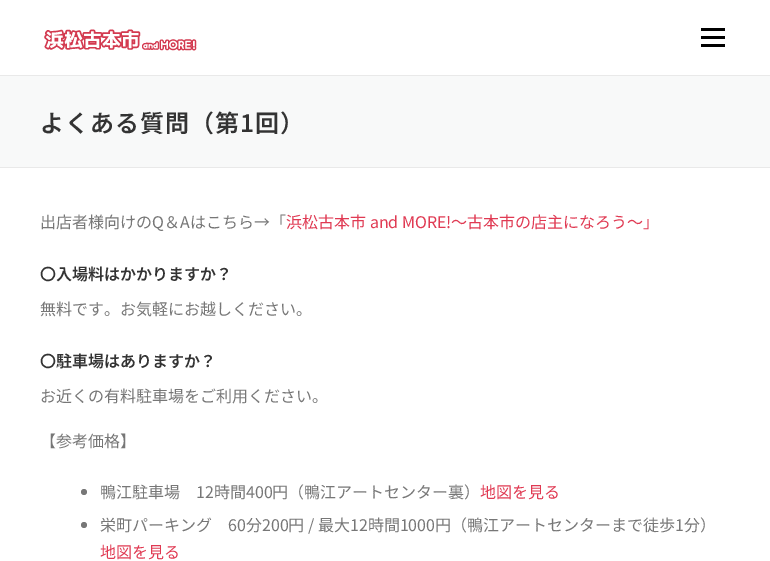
%!PS
<< /PageSize [770 561] >> setpagedevice
/rgb { 3 { 255 div 3 1 roll } repeat setrgbcolor } def
/font { [ exch dup neg 0 0 3 -1 roll 0 0 ] selectfont } def
/text { moveto show } def
/circle { newpath 0 360 arc closepath } def
/picture { 5 dict begin { /h /w /y /x /name } { exch def } forall
  gsave x y translate w h scale
  w h 8 [w 0 0 h 0 0] name (r) file false 3 colorimage grestore end } def
0 561 translate 1 -1 scale
4 setmiterlimit
255 255 255 rgb
0 0 770 561 rectfill
(img_01.rgb) 44 29 153 22 picture
0 0 0 rgb
701 36 24 3 rectfill
701 28 24 3 rectfill
701 44 24 3 rectfill
248 249 249 rgb
0 76 770 91 rectfill
233 233 233 rgb
0 75 770 1 rectfill
0 167 770 1 rectfill
119 119 119 rgb
84 492 3 circle fill
84 525 3 circle fill
/NotoSansJP-SemiBold 24 font
51 51 51 rgb
40 132 moveto 1 0 (よくある質問（第1回）) ashow
/NotoSansJP-Regular 16 font
119 119 119 rgb
(出店者様向けのQ＆Aはこちら→「) 40 228 text
224 58 83 rgb
(浜松古本市 and MORE!～古本市の店主になろう～」) 286 228 text
/NotoSansJP-SemiBold 16 font
51 51 51 rgb
(〇入場料はかかりますか？) 40 280 text
/NotoSansJP-Regular 16 font
119 119 119 rgb
(無料です。お気軽にお越しください。) 40 315 text
/NotoSansJP-SemiBold 16 font
51 51 51 rgb
(〇駐車場はありますか？) 40 367 text
/NotoSansJP-Regular 16 font
119 119 119 rgb
(お近くの有料駐車場をご利用ください。) 40 402 text
(【参考価格】) 40 447 text
(鴨江駐車場　12時間400円（鴨江アートセンター裏）) 100 498 text
224 58 83 rgb
(地図を見る) 480 498 text
119 119 119 rgb
(栄町パーキング　60分200円 / 最大12時間1000円（鴨江アートセンターまで徒歩1分）) 100 531 text
224 58 83 rgb
(地図を見る) 100 558 text
showpage
